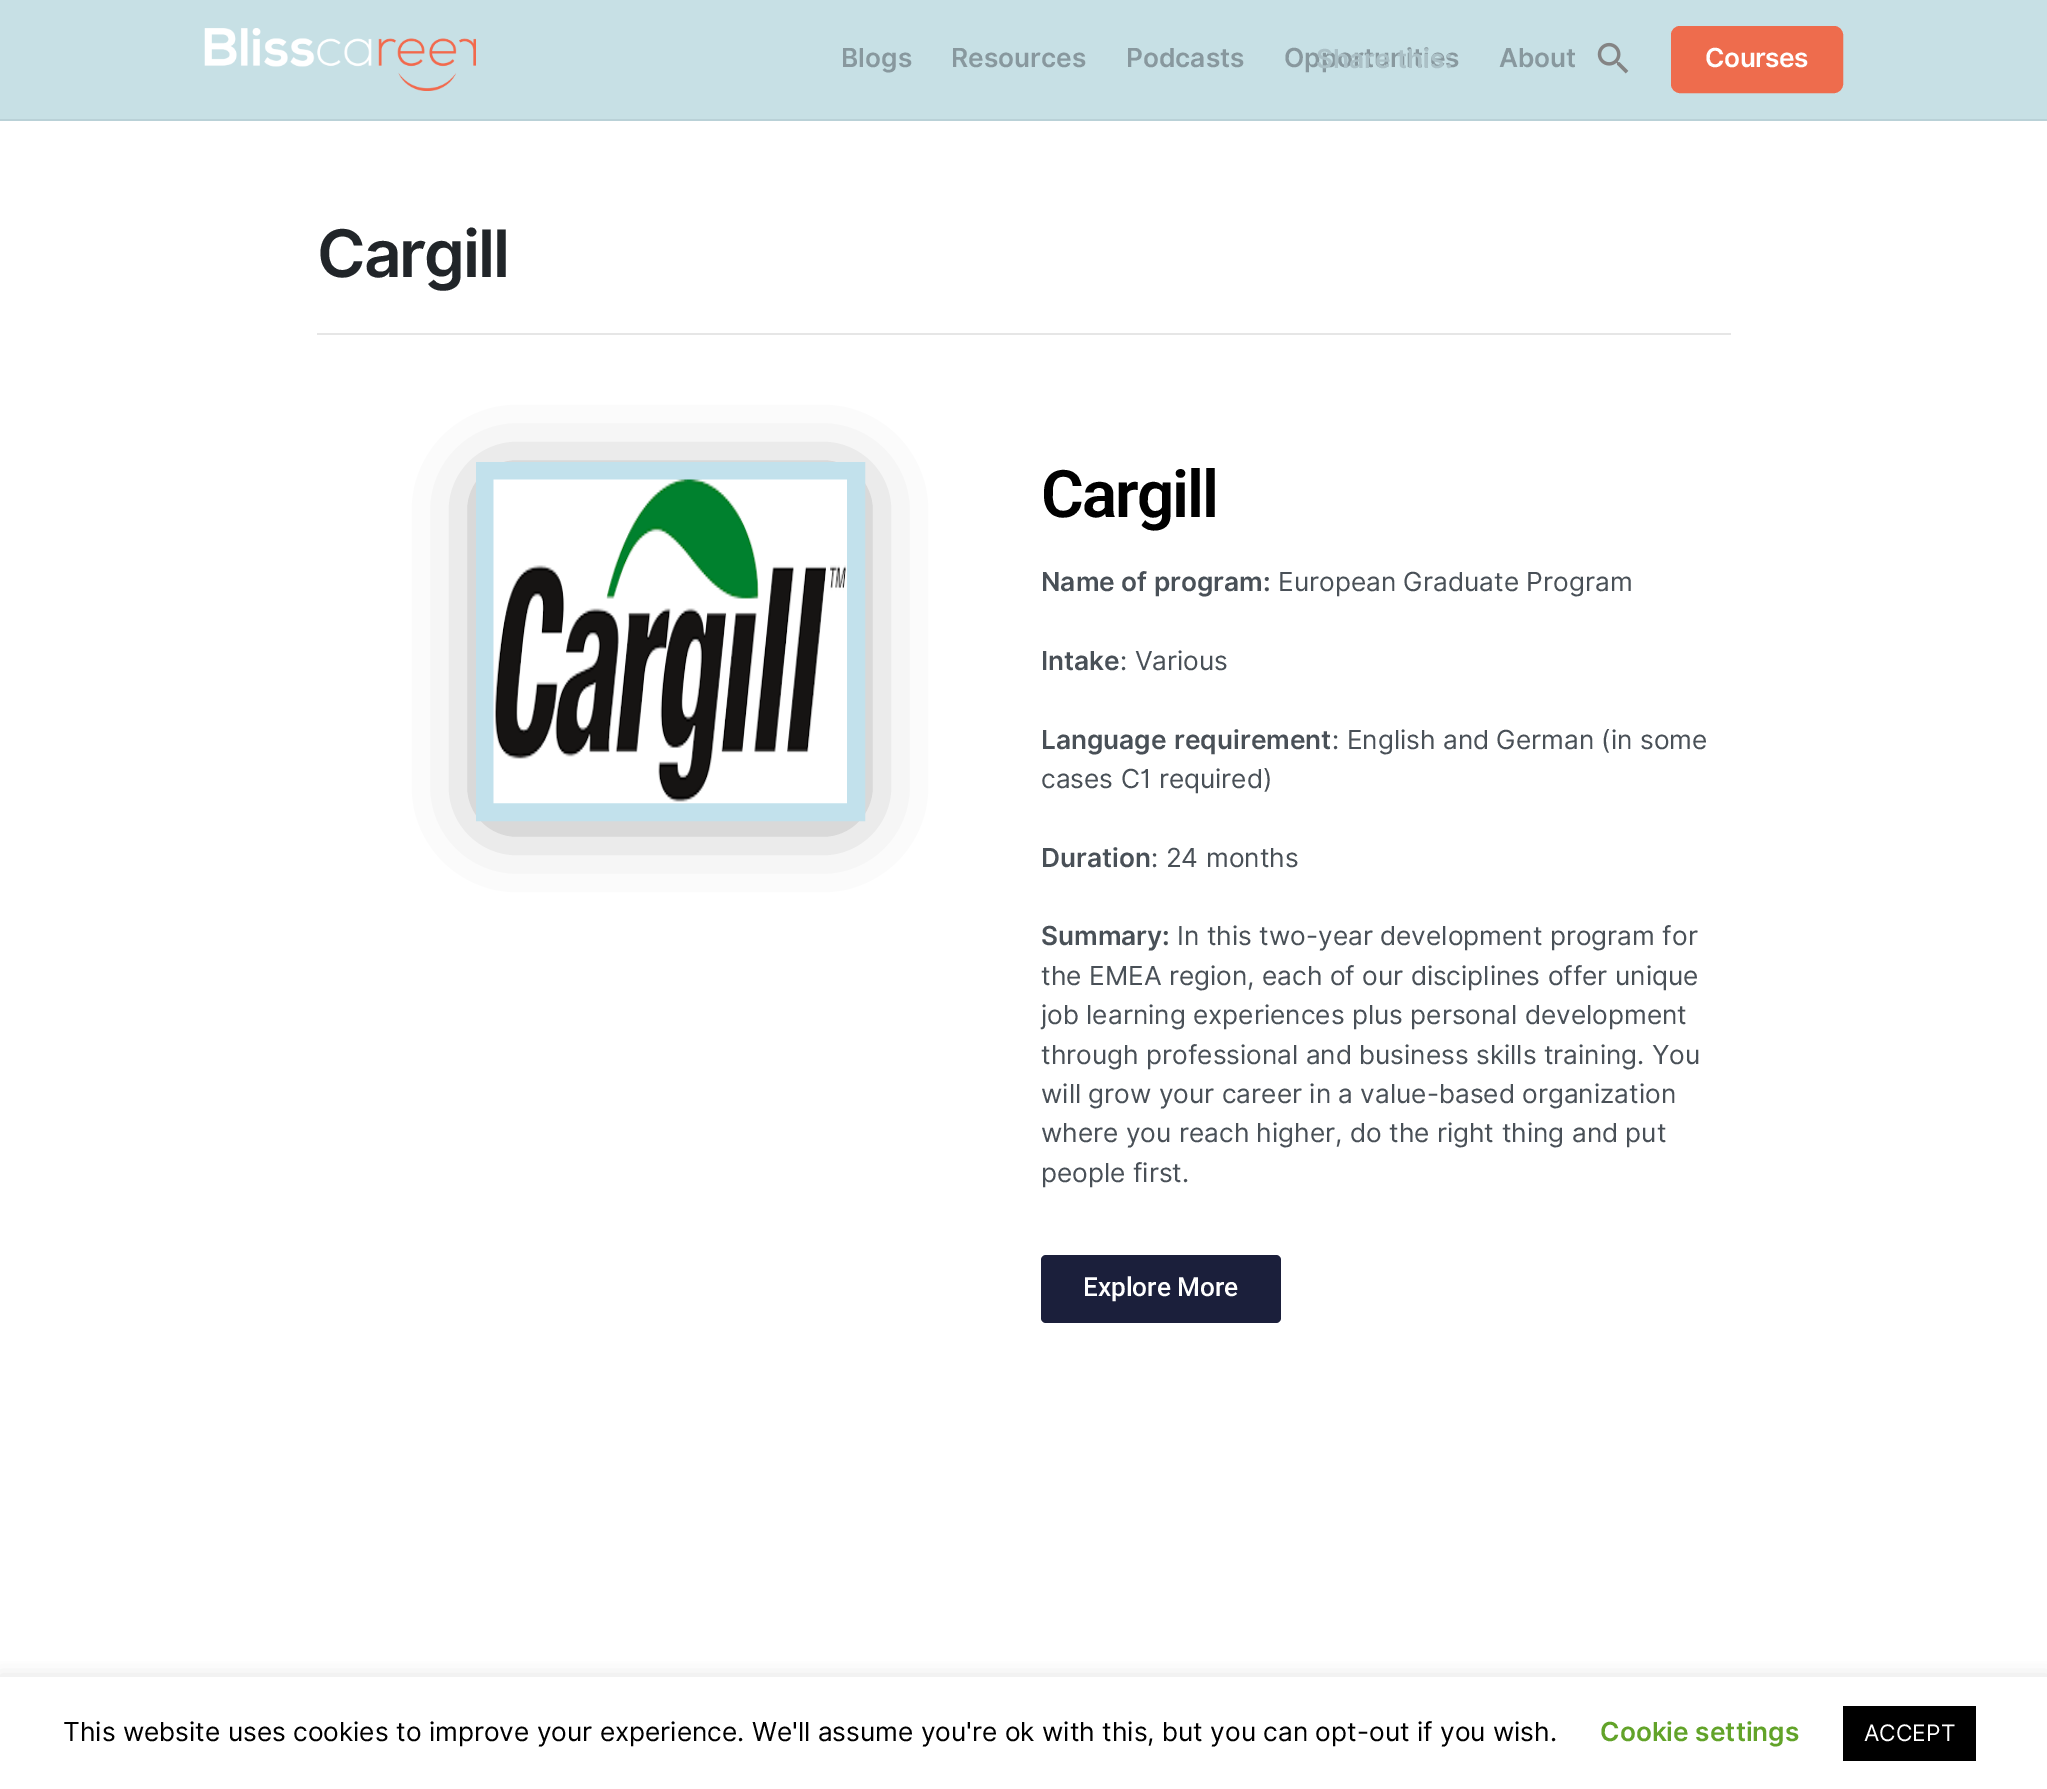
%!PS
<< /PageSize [2047 1789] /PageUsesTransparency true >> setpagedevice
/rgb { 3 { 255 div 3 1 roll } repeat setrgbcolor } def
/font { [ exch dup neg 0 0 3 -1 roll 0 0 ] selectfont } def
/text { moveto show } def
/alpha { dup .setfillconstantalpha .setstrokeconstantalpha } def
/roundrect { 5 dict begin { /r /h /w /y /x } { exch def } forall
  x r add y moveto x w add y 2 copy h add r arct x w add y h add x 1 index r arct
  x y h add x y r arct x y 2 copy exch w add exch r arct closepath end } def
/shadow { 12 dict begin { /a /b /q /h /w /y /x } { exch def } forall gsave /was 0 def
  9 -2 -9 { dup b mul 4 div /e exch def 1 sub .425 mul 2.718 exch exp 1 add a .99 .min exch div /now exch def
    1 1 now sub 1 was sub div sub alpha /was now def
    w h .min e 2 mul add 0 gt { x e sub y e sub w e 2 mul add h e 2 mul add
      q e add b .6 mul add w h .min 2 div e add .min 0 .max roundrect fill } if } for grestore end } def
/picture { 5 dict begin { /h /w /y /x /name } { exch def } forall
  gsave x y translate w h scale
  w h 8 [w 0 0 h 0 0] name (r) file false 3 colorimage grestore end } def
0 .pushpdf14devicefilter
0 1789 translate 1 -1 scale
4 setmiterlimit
255 255 255 rgb
0 0 2047 1789 rectfill
199 224 229 rgb
0 0 2047 119 rectfill
185 209 215 rgb
0 119 2047 2 rectfill
(img_01.rgb) 204 28 272 63 picture
(img_02.rgb) 1597 42 32 32 picture
238 108 77 rgb
1672 27 170 65 8 roundrect gsave fill grestore
2 setlinewidth
stroke
230 230 230 rgb
317 333 1414 2 rectfill
0 0 0 rgb
495 488 350 321 0 37 0.5 shadow
194 225 236 rgb
18 setlinewidth
485 471 371 341 rectstroke
(img_03.rgb) 493 479 354 325 picture
27 31 59 rgb
1041 1255 240 68 5 roundrect fill
gsave
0 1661 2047 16 rectclip
172 171 171 rgb
0 1675 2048 114 0 9 0.3 shadow
grestore
0 0 0 rgb
1843 1706 133 55 rectfill
/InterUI-SemiBold 26.25 font
136 152 158 rgb
(Blogs) 841 67 text
(Resources) 951 67 text
(Podcasts) 1126 67 text
(Opportunities) 1284 67 text
(About) 1499 67 text
255 255 255 rgb
1705 67 moveto -0.5 0 (Courses) ashow
171 192 198 rgb
(Share this:) 1316 68 text
/InterUI-SemiBold 65.5 font
33 37 41 rgb
317 277 moveto -2 0 (Cargill) ashow
/Roboto-SemiBold 65.5 font
0 0 0 rgb
1041 517 moveto -2 0 (Cargill) ashow
/InterUI-SemiBold 26.25 font
73 80 87 rgb
(Name of program:) 1041 591 text
/InterUI-Regular 26.25 font
(European Graduate Program) 1278 591 text
/InterUI-SemiBold 26.25 font
(Intake) 1041 670 text
/InterUI-Regular 26.25 font
(: Various) 1120 670 text
/InterUI-SemiBold 26.25 font
(Language) 1041 749 text
(requirement) 1174 749 text
/InterUI-Regular 26.25 font
(: English and German \(in some) 1332 749 text
(cases C1 required\)) 1041 788 text
/InterUI-SemiBold 26.25 font
(Duration) 1041 867 text
/InterUI-Regular 26.25 font
(: 24 months) 1151 867 text
/InterUI-SemiBold 26.25 font
(Summary:) 1041 945 text
/InterUI-Regular 26.25 font
(In this two-year development program for) 1177 945 text
(the EMEA region, each of our disciplines offer unique) 1041 985 text
(job learning experiences plus personal development) 1041 1024 text
(through professional and business skills training. You) 1041 1064 text
(will grow your career in a value-based organization) 1041 1103 text
(where you reach higher, do the right thing and put) 1041 1142 text
(people first.) 1041 1182 text
/Roboto-Medium 26.25 font
255 255 255 rgb
(Explore More) 1083 1296 text
/InterUI-Regular 26.25 font
0 0 0 rgb
(This website uses cookies to improve your experience. We'll assume you're ok with this, but you can opt-out if you wish.) 63 1741 text
/InterUI-SemiBold 26.25 font
98 163 41 rgb
(Cookie settings) 1600 1741 text
/InterUI-Regular 22.75 font
255 255 255 rgb
(ACCEPT) 1864 1741 text
.poppdf14devicefilter showpage
